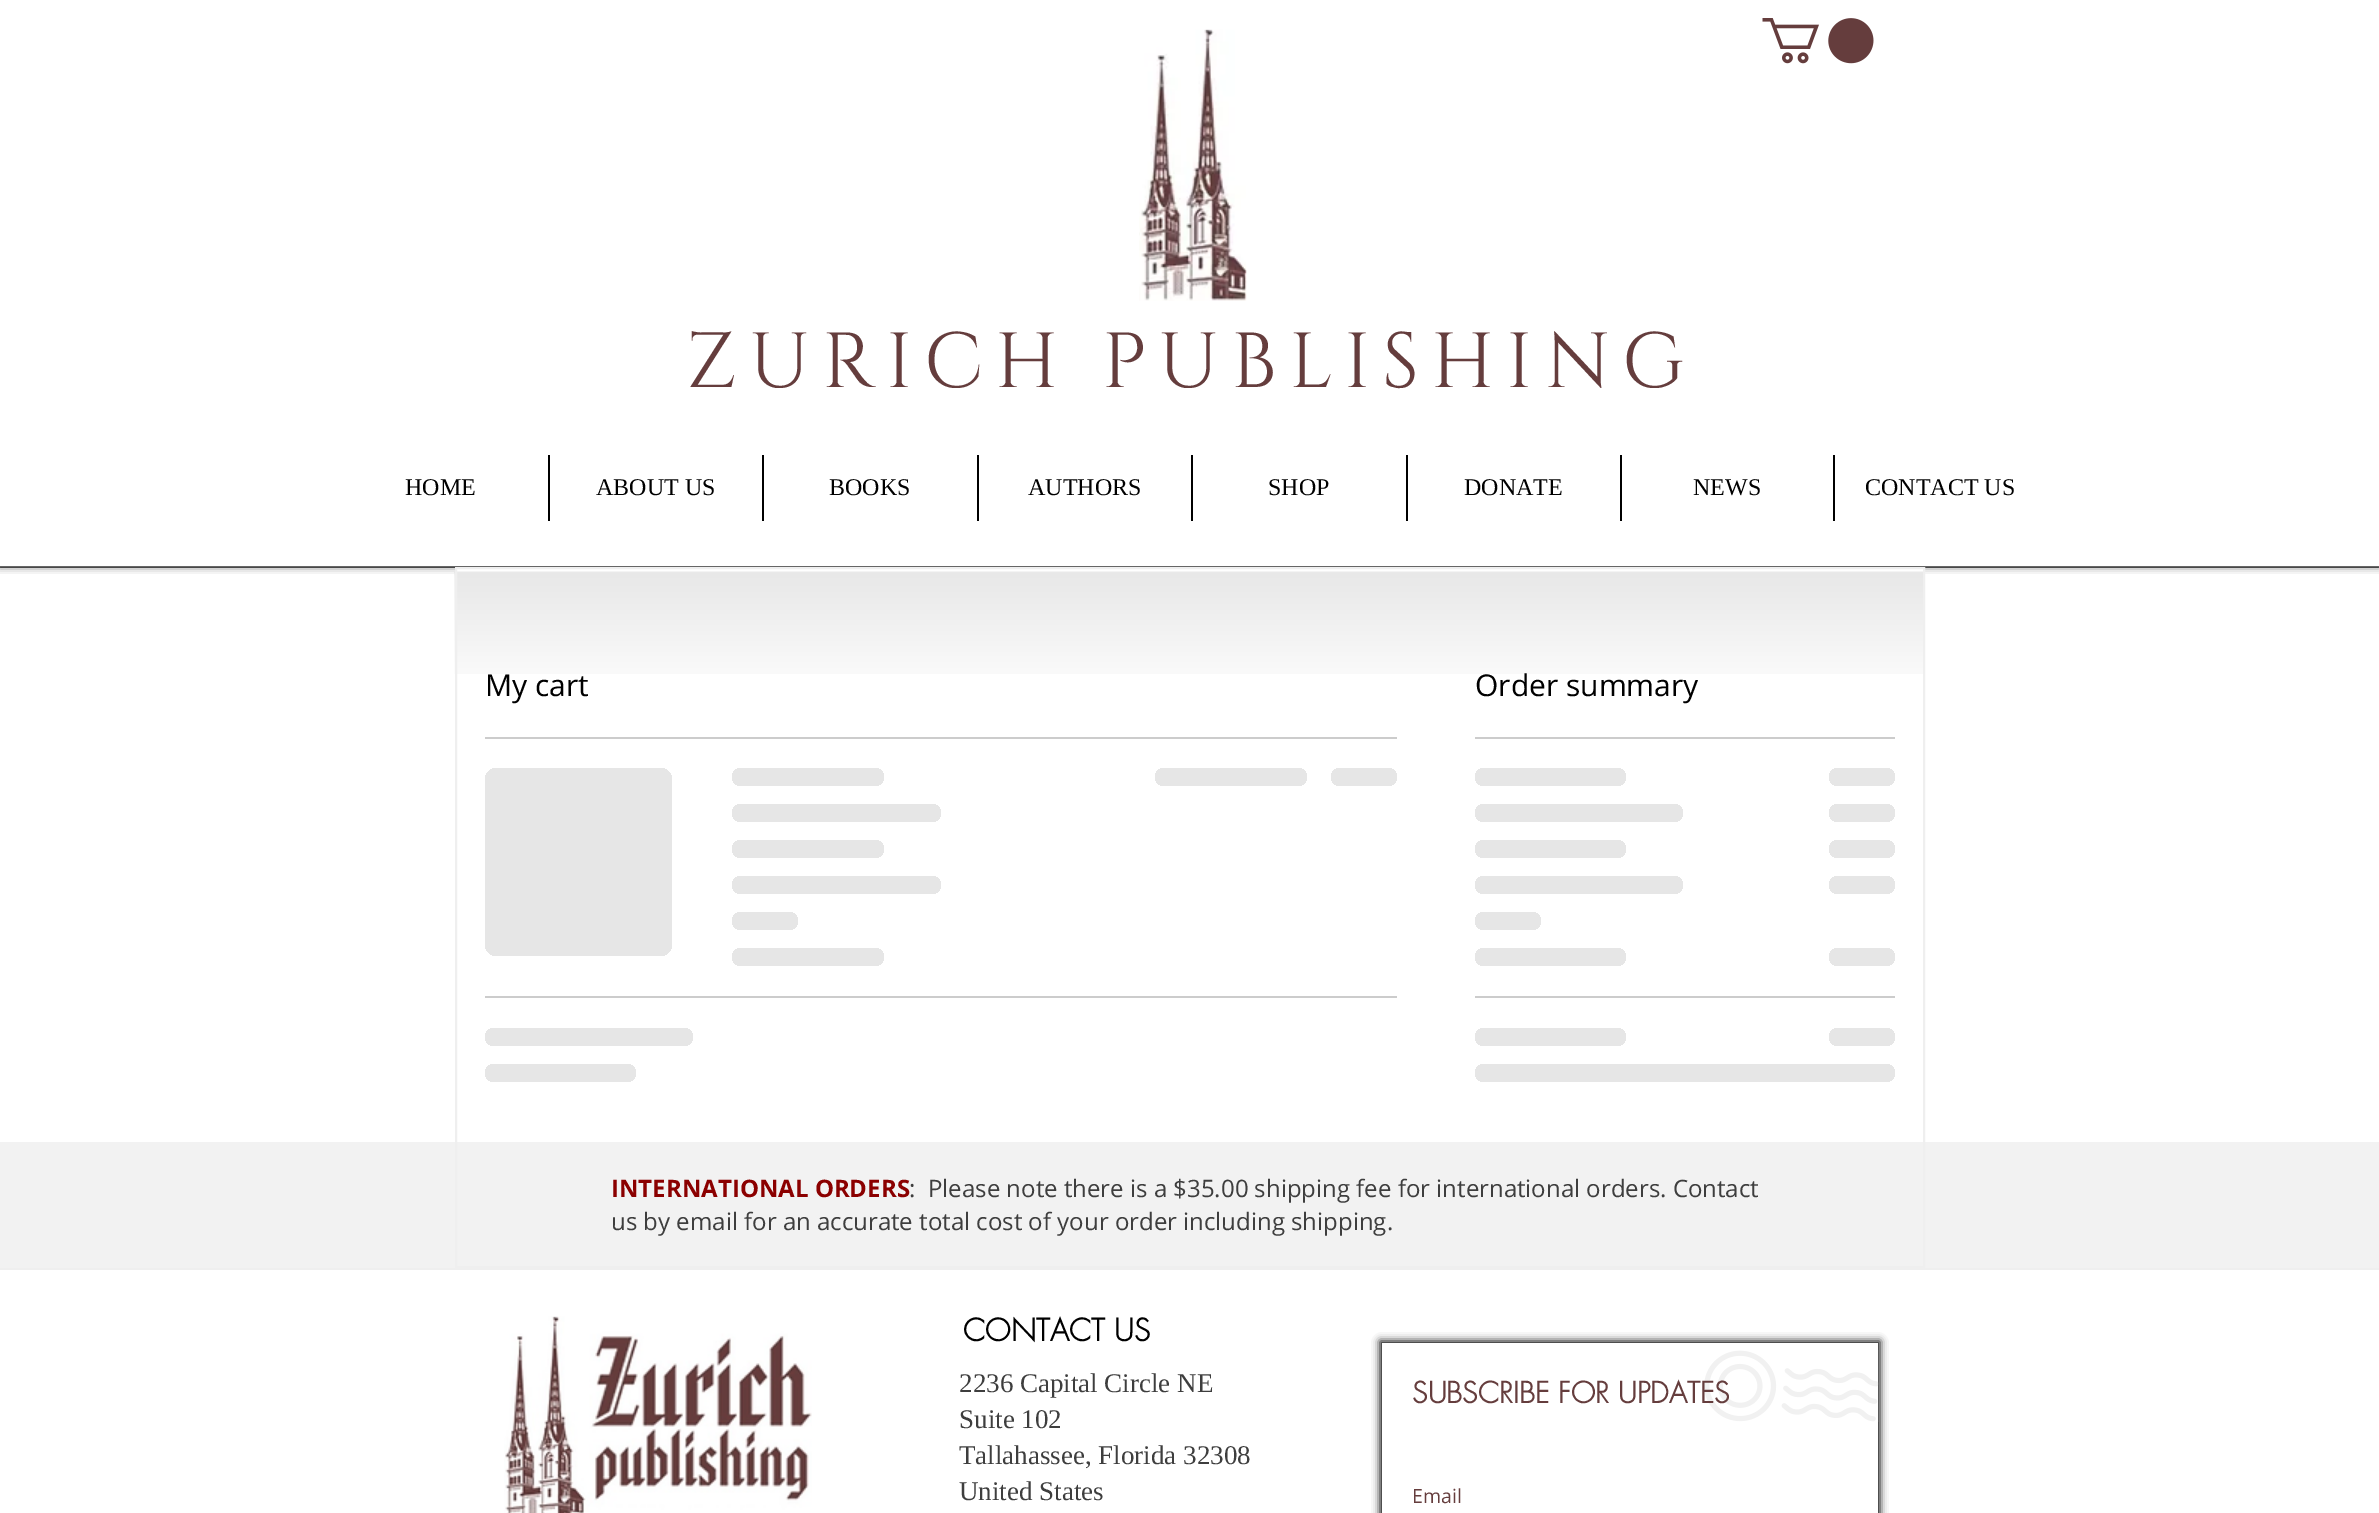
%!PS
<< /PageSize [2379 1513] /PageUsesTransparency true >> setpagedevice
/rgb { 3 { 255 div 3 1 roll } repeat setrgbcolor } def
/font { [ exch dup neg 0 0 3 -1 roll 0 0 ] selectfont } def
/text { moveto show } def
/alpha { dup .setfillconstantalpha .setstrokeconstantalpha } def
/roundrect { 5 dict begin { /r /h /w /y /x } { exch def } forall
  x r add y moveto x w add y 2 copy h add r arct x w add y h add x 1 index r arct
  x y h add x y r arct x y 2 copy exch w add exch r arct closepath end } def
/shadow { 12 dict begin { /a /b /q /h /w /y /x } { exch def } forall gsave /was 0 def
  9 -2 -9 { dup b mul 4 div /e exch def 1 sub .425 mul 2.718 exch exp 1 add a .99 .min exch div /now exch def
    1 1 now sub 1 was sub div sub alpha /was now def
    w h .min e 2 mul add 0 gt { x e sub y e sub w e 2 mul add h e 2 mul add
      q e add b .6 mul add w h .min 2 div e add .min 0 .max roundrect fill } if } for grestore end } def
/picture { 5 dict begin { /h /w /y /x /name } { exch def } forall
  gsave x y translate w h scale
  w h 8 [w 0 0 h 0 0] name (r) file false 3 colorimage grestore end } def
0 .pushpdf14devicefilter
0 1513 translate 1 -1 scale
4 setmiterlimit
255 255 255 rgb
0 0 2379 1513 rectfill
gsave
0 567 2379 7 rectclip
0 0 0 rgb
0 0 2379 567 0 4 0.6 shadow
grestore
0.6 alpha
0 0 0 rgb
0 566 2379 2 rectfill
1 alpha
(img_01.rgb) 1139 29 108 272 picture
(img_02.rgb) 1762 18 112 46 picture
548 455 2 66 rectfill
762 455 2 66 rectfill
977 455 2 66 rectfill
1191 455 2 66 rectfill
1406 455 2 66 rectfill
1620 455 2 66 rectfill
1833 455 2 66 rectfill
255 255 255 rgb
457 569 1466 6 rectfill
(img_03.rgb) 454 571 1469 103 picture
239 239 239 rgb
2 setlinewidth
456 568 1468 699 rectstroke
204 204 204 rgb
485 737 912 2 rectfill
gsave 485 768 187 188 12 roundrect clip newpath
<< /ShadingType 2 /ColorSpace /DeviceRGB /Coords [485 862 1235 862] /Extend [true true] /Function << /FunctionType 3 /Domain [0 1] /Functions [<< /FunctionType 2 /Domain [0 1] /C0 [0.902 0.902 0.902] /C1 [0.902 0.902 0.902] /N 1 >> << /FunctionType 2 /Domain [0 1] /C0 [0.902 0.902 0.902] /C1 [0.8 0.8 0.8] /N 1 >> << /FunctionType 2 /Domain [0 1] /C0 [0.8 0.8 0.8] /C1 [0.902 0.902 0.902] /N 1 >> << /FunctionType 2 /Domain [0 1] /C0 [0.902 0.902 0.902] /C1 [0.902 0.902 0.902] /N 1 >>] /Bounds [0.25 0.37 0.63] /Encode [0 1 0 1 0 1 0 1] >> >> shfill grestore
gsave 732 768 152 18 9 roundrect clip newpath
<< /ShadingType 2 /ColorSpace /DeviceRGB /Coords [732 777 1338 777] /Extend [true true] /Function << /FunctionType 3 /Domain [0 1] /Functions [<< /FunctionType 2 /Domain [0 1] /C0 [0.902 0.902 0.902] /C1 [0.902 0.902 0.902] /N 1 >> << /FunctionType 2 /Domain [0 1] /C0 [0.902 0.902 0.902] /C1 [0.8 0.8 0.8] /N 1 >> << /FunctionType 2 /Domain [0 1] /C0 [0.8 0.8 0.8] /C1 [0.902 0.902 0.902] /N 1 >> << /FunctionType 2 /Domain [0 1] /C0 [0.902 0.902 0.902] /C1 [0.902 0.902 0.902] /N 1 >>] /Bounds [0.25 0.37 0.63] /Encode [0 1 0 1 0 1 0 1] >> >> shfill grestore
gsave 732 804 209 18 9 roundrect clip newpath
<< /ShadingType 2 /ColorSpace /DeviceRGB /Coords [732 813 1566 813] /Extend [true true] /Function << /FunctionType 3 /Domain [0 1] /Functions [<< /FunctionType 2 /Domain [0 1] /C0 [0.902 0.902 0.902] /C1 [0.902 0.902 0.902] /N 1 >> << /FunctionType 2 /Domain [0 1] /C0 [0.902 0.902 0.902] /C1 [0.8 0.8 0.8] /N 1 >> << /FunctionType 2 /Domain [0 1] /C0 [0.8 0.8 0.8] /C1 [0.902 0.902 0.902] /N 1 >> << /FunctionType 2 /Domain [0 1] /C0 [0.902 0.902 0.902] /C1 [0.902 0.902 0.902] /N 1 >>] /Bounds [0.25 0.37 0.63] /Encode [0 1 0 1 0 1 0 1] >> >> shfill grestore
gsave 732 840 152 18 9 roundrect clip newpath
<< /ShadingType 2 /ColorSpace /DeviceRGB /Coords [732 849 1338 849] /Extend [true true] /Function << /FunctionType 3 /Domain [0 1] /Functions [<< /FunctionType 2 /Domain [0 1] /C0 [0.902 0.902 0.902] /C1 [0.902 0.902 0.902] /N 1 >> << /FunctionType 2 /Domain [0 1] /C0 [0.902 0.902 0.902] /C1 [0.8 0.8 0.8] /N 1 >> << /FunctionType 2 /Domain [0 1] /C0 [0.8 0.8 0.8] /C1 [0.902 0.902 0.902] /N 1 >> << /FunctionType 2 /Domain [0 1] /C0 [0.902 0.902 0.902] /C1 [0.902 0.902 0.902] /N 1 >>] /Bounds [0.25 0.37 0.63] /Encode [0 1 0 1 0 1 0 1] >> >> shfill grestore
gsave 732 876 209 18 9 roundrect clip newpath
<< /ShadingType 2 /ColorSpace /DeviceRGB /Coords [732 885 1566 885] /Extend [true true] /Function << /FunctionType 3 /Domain [0 1] /Functions [<< /FunctionType 2 /Domain [0 1] /C0 [0.902 0.902 0.902] /C1 [0.902 0.902 0.902] /N 1 >> << /FunctionType 2 /Domain [0 1] /C0 [0.902 0.902 0.902] /C1 [0.8 0.8 0.8] /N 1 >> << /FunctionType 2 /Domain [0 1] /C0 [0.8 0.8 0.8] /C1 [0.902 0.902 0.902] /N 1 >> << /FunctionType 2 /Domain [0 1] /C0 [0.902 0.902 0.902] /C1 [0.902 0.902 0.902] /N 1 >>] /Bounds [0.25 0.37 0.63] /Encode [0 1 0 1 0 1 0 1] >> >> shfill grestore
gsave 732 912 66 18 9 roundrect clip newpath
<< /ShadingType 2 /ColorSpace /DeviceRGB /Coords [732 921 996 921] /Extend [true true] /Function << /FunctionType 3 /Domain [0 1] /Functions [<< /FunctionType 2 /Domain [0 1] /C0 [0.902 0.902 0.902] /C1 [0.902 0.902 0.902] /N 1 >> << /FunctionType 2 /Domain [0 1] /C0 [0.902 0.902 0.902] /C1 [0.8 0.8 0.8] /N 1 >> << /FunctionType 2 /Domain [0 1] /C0 [0.8 0.8 0.8] /C1 [0.902 0.902 0.902] /N 1 >> << /FunctionType 2 /Domain [0 1] /C0 [0.902 0.902 0.902] /C1 [0.902 0.902 0.902] /N 1 >>] /Bounds [0.25 0.37 0.63] /Encode [0 1 0 1 0 1 0 1] >> >> shfill grestore
gsave 732 948 152 18 9 roundrect clip newpath
<< /ShadingType 2 /ColorSpace /DeviceRGB /Coords [732 957 1338 957] /Extend [true true] /Function << /FunctionType 3 /Domain [0 1] /Functions [<< /FunctionType 2 /Domain [0 1] /C0 [0.902 0.902 0.902] /C1 [0.902 0.902 0.902] /N 1 >> << /FunctionType 2 /Domain [0 1] /C0 [0.902 0.902 0.902] /C1 [0.8 0.8 0.8] /N 1 >> << /FunctionType 2 /Domain [0 1] /C0 [0.8 0.8 0.8] /C1 [0.902 0.902 0.902] /N 1 >> << /FunctionType 2 /Domain [0 1] /C0 [0.902 0.902 0.902] /C1 [0.902 0.902 0.902] /N 1 >>] /Bounds [0.25 0.37 0.63] /Encode [0 1 0 1 0 1 0 1] >> >> shfill grestore
gsave 1155 768 152 18 9 roundrect clip newpath
<< /ShadingType 2 /ColorSpace /DeviceRGB /Coords [1155 777 1761 777] /Extend [true true] /Function << /FunctionType 3 /Domain [0 1] /Functions [<< /FunctionType 2 /Domain [0 1] /C0 [0.902 0.902 0.902] /C1 [0.902 0.902 0.902] /N 1 >> << /FunctionType 2 /Domain [0 1] /C0 [0.902 0.902 0.902] /C1 [0.8 0.8 0.8] /N 1 >> << /FunctionType 2 /Domain [0 1] /C0 [0.8 0.8 0.8] /C1 [0.902 0.902 0.902] /N 1 >> << /FunctionType 2 /Domain [0 1] /C0 [0.902 0.902 0.902] /C1 [0.902 0.902 0.902] /N 1 >>] /Bounds [0.25 0.37 0.63] /Encode [0 1 0 1 0 1 0 1] >> >> shfill grestore
gsave 1331 768 66 18 9 roundrect clip newpath
<< /ShadingType 2 /ColorSpace /DeviceRGB /Coords [1331 777 1595 777] /Extend [true true] /Function << /FunctionType 3 /Domain [0 1] /Functions [<< /FunctionType 2 /Domain [0 1] /C0 [0.902 0.902 0.902] /C1 [0.902 0.902 0.902] /N 1 >> << /FunctionType 2 /Domain [0 1] /C0 [0.902 0.902 0.902] /C1 [0.8 0.8 0.8] /N 1 >> << /FunctionType 2 /Domain [0 1] /C0 [0.8 0.8 0.8] /C1 [0.902 0.902 0.902] /N 1 >> << /FunctionType 2 /Domain [0 1] /C0 [0.902 0.902 0.902] /C1 [0.902 0.902 0.902] /N 1 >>] /Bounds [0.25 0.37 0.63] /Encode [0 1 0 1 0 1 0 1] >> >> shfill grestore
485 996 912 2 rectfill
gsave 485 1028 208 18 9 roundrect clip newpath
<< /ShadingType 2 /ColorSpace /DeviceRGB /Coords [485 1037 1319 1037] /Extend [true true] /Function << /FunctionType 3 /Domain [0 1] /Functions [<< /FunctionType 2 /Domain [0 1] /C0 [0.902 0.902 0.902] /C1 [0.902 0.902 0.902] /N 1 >> << /FunctionType 2 /Domain [0 1] /C0 [0.902 0.902 0.902] /C1 [0.8 0.8 0.8] /N 1 >> << /FunctionType 2 /Domain [0 1] /C0 [0.8 0.8 0.8] /C1 [0.902 0.902 0.902] /N 1 >> << /FunctionType 2 /Domain [0 1] /C0 [0.902 0.902 0.902] /C1 [0.902 0.902 0.902] /N 1 >>] /Bounds [0.25 0.37 0.63] /Encode [0 1 0 1 0 1 0 1] >> >> shfill grestore
gsave 485 1064 151 18 9 roundrect clip newpath
<< /ShadingType 2 /ColorSpace /DeviceRGB /Coords [485 1073 1091 1073] /Extend [true true] /Function << /FunctionType 3 /Domain [0 1] /Functions [<< /FunctionType 2 /Domain [0 1] /C0 [0.902 0.902 0.902] /C1 [0.902 0.902 0.902] /N 1 >> << /FunctionType 2 /Domain [0 1] /C0 [0.902 0.902 0.902] /C1 [0.8 0.8 0.8] /N 1 >> << /FunctionType 2 /Domain [0 1] /C0 [0.8 0.8 0.8] /C1 [0.902 0.902 0.902] /N 1 >> << /FunctionType 2 /Domain [0 1] /C0 [0.902 0.902 0.902] /C1 [0.902 0.902 0.902] /N 1 >>] /Bounds [0.25 0.37 0.63] /Encode [0 1 0 1 0 1 0 1] >> >> shfill grestore
1475 737 420 2 rectfill
gsave 1475 768 151 18 9 roundrect clip newpath
<< /ShadingType 2 /ColorSpace /DeviceRGB /Coords [1475 777 2081 777] /Extend [true true] /Function << /FunctionType 3 /Domain [0 1] /Functions [<< /FunctionType 2 /Domain [0 1] /C0 [0.902 0.902 0.902] /C1 [0.902 0.902 0.902] /N 1 >> << /FunctionType 2 /Domain [0 1] /C0 [0.902 0.902 0.902] /C1 [0.8 0.8 0.8] /N 1 >> << /FunctionType 2 /Domain [0 1] /C0 [0.8 0.8 0.8] /C1 [0.902 0.902 0.902] /N 1 >> << /FunctionType 2 /Domain [0 1] /C0 [0.902 0.902 0.902] /C1 [0.902 0.902 0.902] /N 1 >>] /Bounds [0.25 0.37 0.63] /Encode [0 1 0 1 0 1 0 1] >> >> shfill grestore
gsave 1829 768 66 18 9 roundrect clip newpath
<< /ShadingType 2 /ColorSpace /DeviceRGB /Coords [1829 777 2093 777] /Extend [true true] /Function << /FunctionType 3 /Domain [0 1] /Functions [<< /FunctionType 2 /Domain [0 1] /C0 [0.902 0.902 0.902] /C1 [0.902 0.902 0.902] /N 1 >> << /FunctionType 2 /Domain [0 1] /C0 [0.902 0.902 0.902] /C1 [0.8 0.8 0.8] /N 1 >> << /FunctionType 2 /Domain [0 1] /C0 [0.8 0.8 0.8] /C1 [0.902 0.902 0.902] /N 1 >> << /FunctionType 2 /Domain [0 1] /C0 [0.902 0.902 0.902] /C1 [0.902 0.902 0.902] /N 1 >>] /Bounds [0.25 0.37 0.63] /Encode [0 1 0 1 0 1 0 1] >> >> shfill grestore
gsave 1475 804 208 18 9 roundrect clip newpath
<< /ShadingType 2 /ColorSpace /DeviceRGB /Coords [1475 813 2309 813] /Extend [true true] /Function << /FunctionType 3 /Domain [0 1] /Functions [<< /FunctionType 2 /Domain [0 1] /C0 [0.902 0.902 0.902] /C1 [0.902 0.902 0.902] /N 1 >> << /FunctionType 2 /Domain [0 1] /C0 [0.902 0.902 0.902] /C1 [0.8 0.8 0.8] /N 1 >> << /FunctionType 2 /Domain [0 1] /C0 [0.8 0.8 0.8] /C1 [0.902 0.902 0.902] /N 1 >> << /FunctionType 2 /Domain [0 1] /C0 [0.902 0.902 0.902] /C1 [0.902 0.902 0.902] /N 1 >>] /Bounds [0.25 0.37 0.63] /Encode [0 1 0 1 0 1 0 1] >> >> shfill grestore
gsave 1829 804 66 18 9 roundrect clip newpath
<< /ShadingType 2 /ColorSpace /DeviceRGB /Coords [1829 813 2093 813] /Extend [true true] /Function << /FunctionType 3 /Domain [0 1] /Functions [<< /FunctionType 2 /Domain [0 1] /C0 [0.902 0.902 0.902] /C1 [0.902 0.902 0.902] /N 1 >> << /FunctionType 2 /Domain [0 1] /C0 [0.902 0.902 0.902] /C1 [0.8 0.8 0.8] /N 1 >> << /FunctionType 2 /Domain [0 1] /C0 [0.8 0.8 0.8] /C1 [0.902 0.902 0.902] /N 1 >> << /FunctionType 2 /Domain [0 1] /C0 [0.902 0.902 0.902] /C1 [0.902 0.902 0.902] /N 1 >>] /Bounds [0.25 0.37 0.63] /Encode [0 1 0 1 0 1 0 1] >> >> shfill grestore
gsave 1475 840 151 18 9 roundrect clip newpath
<< /ShadingType 2 /ColorSpace /DeviceRGB /Coords [1475 849 2081 849] /Extend [true true] /Function << /FunctionType 3 /Domain [0 1] /Functions [<< /FunctionType 2 /Domain [0 1] /C0 [0.902 0.902 0.902] /C1 [0.902 0.902 0.902] /N 1 >> << /FunctionType 2 /Domain [0 1] /C0 [0.902 0.902 0.902] /C1 [0.8 0.8 0.8] /N 1 >> << /FunctionType 2 /Domain [0 1] /C0 [0.8 0.8 0.8] /C1 [0.902 0.902 0.902] /N 1 >> << /FunctionType 2 /Domain [0 1] /C0 [0.902 0.902 0.902] /C1 [0.902 0.902 0.902] /N 1 >>] /Bounds [0.25 0.37 0.63] /Encode [0 1 0 1 0 1 0 1] >> >> shfill grestore
gsave 1829 840 66 18 9 roundrect clip newpath
<< /ShadingType 2 /ColorSpace /DeviceRGB /Coords [1829 849 2093 849] /Extend [true true] /Function << /FunctionType 3 /Domain [0 1] /Functions [<< /FunctionType 2 /Domain [0 1] /C0 [0.902 0.902 0.902] /C1 [0.902 0.902 0.902] /N 1 >> << /FunctionType 2 /Domain [0 1] /C0 [0.902 0.902 0.902] /C1 [0.8 0.8 0.8] /N 1 >> << /FunctionType 2 /Domain [0 1] /C0 [0.8 0.8 0.8] /C1 [0.902 0.902 0.902] /N 1 >> << /FunctionType 2 /Domain [0 1] /C0 [0.902 0.902 0.902] /C1 [0.902 0.902 0.902] /N 1 >>] /Bounds [0.25 0.37 0.63] /Encode [0 1 0 1 0 1 0 1] >> >> shfill grestore
gsave 1475 876 208 18 9 roundrect clip newpath
<< /ShadingType 2 /ColorSpace /DeviceRGB /Coords [1475 885 2309 885] /Extend [true true] /Function << /FunctionType 3 /Domain [0 1] /Functions [<< /FunctionType 2 /Domain [0 1] /C0 [0.902 0.902 0.902] /C1 [0.902 0.902 0.902] /N 1 >> << /FunctionType 2 /Domain [0 1] /C0 [0.902 0.902 0.902] /C1 [0.8 0.8 0.8] /N 1 >> << /FunctionType 2 /Domain [0 1] /C0 [0.8 0.8 0.8] /C1 [0.902 0.902 0.902] /N 1 >> << /FunctionType 2 /Domain [0 1] /C0 [0.902 0.902 0.902] /C1 [0.902 0.902 0.902] /N 1 >>] /Bounds [0.25 0.37 0.63] /Encode [0 1 0 1 0 1 0 1] >> >> shfill grestore
gsave 1829 876 66 18 9 roundrect clip newpath
<< /ShadingType 2 /ColorSpace /DeviceRGB /Coords [1829 885 2093 885] /Extend [true true] /Function << /FunctionType 3 /Domain [0 1] /Functions [<< /FunctionType 2 /Domain [0 1] /C0 [0.902 0.902 0.902] /C1 [0.902 0.902 0.902] /N 1 >> << /FunctionType 2 /Domain [0 1] /C0 [0.902 0.902 0.902] /C1 [0.8 0.8 0.8] /N 1 >> << /FunctionType 2 /Domain [0 1] /C0 [0.8 0.8 0.8] /C1 [0.902 0.902 0.902] /N 1 >> << /FunctionType 2 /Domain [0 1] /C0 [0.902 0.902 0.902] /C1 [0.902 0.902 0.902] /N 1 >>] /Bounds [0.25 0.37 0.63] /Encode [0 1 0 1 0 1 0 1] >> >> shfill grestore
gsave 1475 912 66 18 9 roundrect clip newpath
<< /ShadingType 2 /ColorSpace /DeviceRGB /Coords [1475 921 1739 921] /Extend [true true] /Function << /FunctionType 3 /Domain [0 1] /Functions [<< /FunctionType 2 /Domain [0 1] /C0 [0.902 0.902 0.902] /C1 [0.902 0.902 0.902] /N 1 >> << /FunctionType 2 /Domain [0 1] /C0 [0.902 0.902 0.902] /C1 [0.8 0.8 0.8] /N 1 >> << /FunctionType 2 /Domain [0 1] /C0 [0.8 0.8 0.8] /C1 [0.902 0.902 0.902] /N 1 >> << /FunctionType 2 /Domain [0 1] /C0 [0.902 0.902 0.902] /C1 [0.902 0.902 0.902] /N 1 >>] /Bounds [0.25 0.37 0.63] /Encode [0 1 0 1 0 1 0 1] >> >> shfill grestore
gsave 1475 948 151 18 9 roundrect clip newpath
<< /ShadingType 2 /ColorSpace /DeviceRGB /Coords [1475 957 2081 957] /Extend [true true] /Function << /FunctionType 3 /Domain [0 1] /Functions [<< /FunctionType 2 /Domain [0 1] /C0 [0.902 0.902 0.902] /C1 [0.902 0.902 0.902] /N 1 >> << /FunctionType 2 /Domain [0 1] /C0 [0.902 0.902 0.902] /C1 [0.8 0.8 0.8] /N 1 >> << /FunctionType 2 /Domain [0 1] /C0 [0.8 0.8 0.8] /C1 [0.902 0.902 0.902] /N 1 >> << /FunctionType 2 /Domain [0 1] /C0 [0.902 0.902 0.902] /C1 [0.902 0.902 0.902] /N 1 >>] /Bounds [0.25 0.37 0.63] /Encode [0 1 0 1 0 1 0 1] >> >> shfill grestore
gsave 1829 948 66 18 9 roundrect clip newpath
<< /ShadingType 2 /ColorSpace /DeviceRGB /Coords [1829 957 2093 957] /Extend [true true] /Function << /FunctionType 3 /Domain [0 1] /Functions [<< /FunctionType 2 /Domain [0 1] /C0 [0.902 0.902 0.902] /C1 [0.902 0.902 0.902] /N 1 >> << /FunctionType 2 /Domain [0 1] /C0 [0.902 0.902 0.902] /C1 [0.8 0.8 0.8] /N 1 >> << /FunctionType 2 /Domain [0 1] /C0 [0.8 0.8 0.8] /C1 [0.902 0.902 0.902] /N 1 >> << /FunctionType 2 /Domain [0 1] /C0 [0.902 0.902 0.902] /C1 [0.902 0.902 0.902] /N 1 >>] /Bounds [0.25 0.37 0.63] /Encode [0 1 0 1 0 1 0 1] >> >> shfill grestore
1475 996 420 2 rectfill
gsave 1475 1028 151 18 9 roundrect clip newpath
<< /ShadingType 2 /ColorSpace /DeviceRGB /Coords [1475 1037 2081 1037] /Extend [true true] /Function << /FunctionType 3 /Domain [0 1] /Functions [<< /FunctionType 2 /Domain [0 1] /C0 [0.902 0.902 0.902] /C1 [0.902 0.902 0.902] /N 1 >> << /FunctionType 2 /Domain [0 1] /C0 [0.902 0.902 0.902] /C1 [0.8 0.8 0.8] /N 1 >> << /FunctionType 2 /Domain [0 1] /C0 [0.8 0.8 0.8] /C1 [0.902 0.902 0.902] /N 1 >> << /FunctionType 2 /Domain [0 1] /C0 [0.902 0.902 0.902] /C1 [0.902 0.902 0.902] /N 1 >>] /Bounds [0.25 0.37 0.63] /Encode [0 1 0 1 0 1 0 1] >> >> shfill grestore
gsave 1829 1028 66 18 9 roundrect clip newpath
<< /ShadingType 2 /ColorSpace /DeviceRGB /Coords [1829 1037 2093 1037] /Extend [true true] /Function << /FunctionType 3 /Domain [0 1] /Functions [<< /FunctionType 2 /Domain [0 1] /C0 [0.902 0.902 0.902] /C1 [0.902 0.902 0.902] /N 1 >> << /FunctionType 2 /Domain [0 1] /C0 [0.902 0.902 0.902] /C1 [0.8 0.8 0.8] /N 1 >> << /FunctionType 2 /Domain [0 1] /C0 [0.8 0.8 0.8] /C1 [0.902 0.902 0.902] /N 1 >> << /FunctionType 2 /Domain [0 1] /C0 [0.902 0.902 0.902] /C1 [0.902 0.902 0.902] /N 1 >>] /Bounds [0.25 0.37 0.63] /Encode [0 1 0 1 0 1 0 1] >> >> shfill grestore
gsave 1475 1064 420 18 9 roundrect clip newpath
<< /ShadingType 2 /ColorSpace /DeviceRGB /Coords [1475 1073 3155 1073] /Extend [true true] /Function << /FunctionType 3 /Domain [0 1] /Functions [<< /FunctionType 2 /Domain [0 1] /C0 [0.902 0.902 0.902] /C1 [0.902 0.902 0.902] /N 1 >> << /FunctionType 2 /Domain [0 1] /C0 [0.902 0.902 0.902] /C1 [0.8 0.8 0.8] /N 1 >> << /FunctionType 2 /Domain [0 1] /C0 [0.8 0.8 0.8] /C1 [0.902 0.902 0.902] /N 1 >> << /FunctionType 2 /Domain [0 1] /C0 [0.902 0.902 0.902] /C1 [0.902 0.902 0.902] /N 1 >>] /Bounds [0.25 0.37 0.63] /Encode [0 1 0 1 0 1 0 1] >> >> shfill grestore
0.8 alpha
239 239 239 rgb
0 1142 2379 126 rectfill
1 alpha
0 1268 2379 2 rectfill
(img_04.rgb) 504 1316 308 197 picture
gsave
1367 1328 moveto 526 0 rlineto 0 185 rlineto -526 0 rlineto closepath 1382 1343 moveto 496 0 rlineto 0 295 rlineto -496 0 rlineto closepath eoclip newpath
0 0 0 rgb
1380 1341 500 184 0 4 1 shadow
grestore
(img_05.rgb) 1704 1350 175 72 picture
/Cinzel-Regular 78 font
101 61 61 rgb
686 387 moveto 11.75 0 (ZURICH PUBLISHING) ashow
/LiberationSerif-Regular 24 font
0 0 0 rgb
(HOME) 405 495 text
(ABOUT US) 596 495 text
(BOOKS) 829 495 text
(AUTHORS) 1028 495 text
(SHOP) 1268 495 text
(DONATE) 1464 495 text
(NEWS) 1693 495 text
(CONTACT US) 1865 495 text
/OpenSans-Regular 30 font
(My cart) 485 696 text
(Order summary) 1475 696 text
/OpenSans-Bold 24 font
139 0 0 rgb
(INTERNATIONAL ORDERS) 611 1197 text
/OpenSans-Regular 24 font
62 62 62 rgb
(:  Please note there is a $35.00 shipping fee for international orders. Contact) 909 1197 text
(us by email for an accurate total cost of your order including shipping.) 611 1230 text
/futura-Bold 30 font
0 0 0 rgb
(CONTACT US) 963 1341 text
/LiberationSerif-Regular 27 font
62 62 62 rgb
(2236 Capital Circle NE) 959 1392 text
(Suite 102) 959 1428 text
(Tallahassee, Florida 32308) 959 1464 text
(United States) 959 1500 text
/futura-Bold 28.5 font
101 61 61 rgb
(SUBSCRIBE FOR UPDATES) 1412 1403 text
/OpenSans-Regular 19.5 font
(Email) 1412 1503 text
.poppdf14devicefilter showpage
